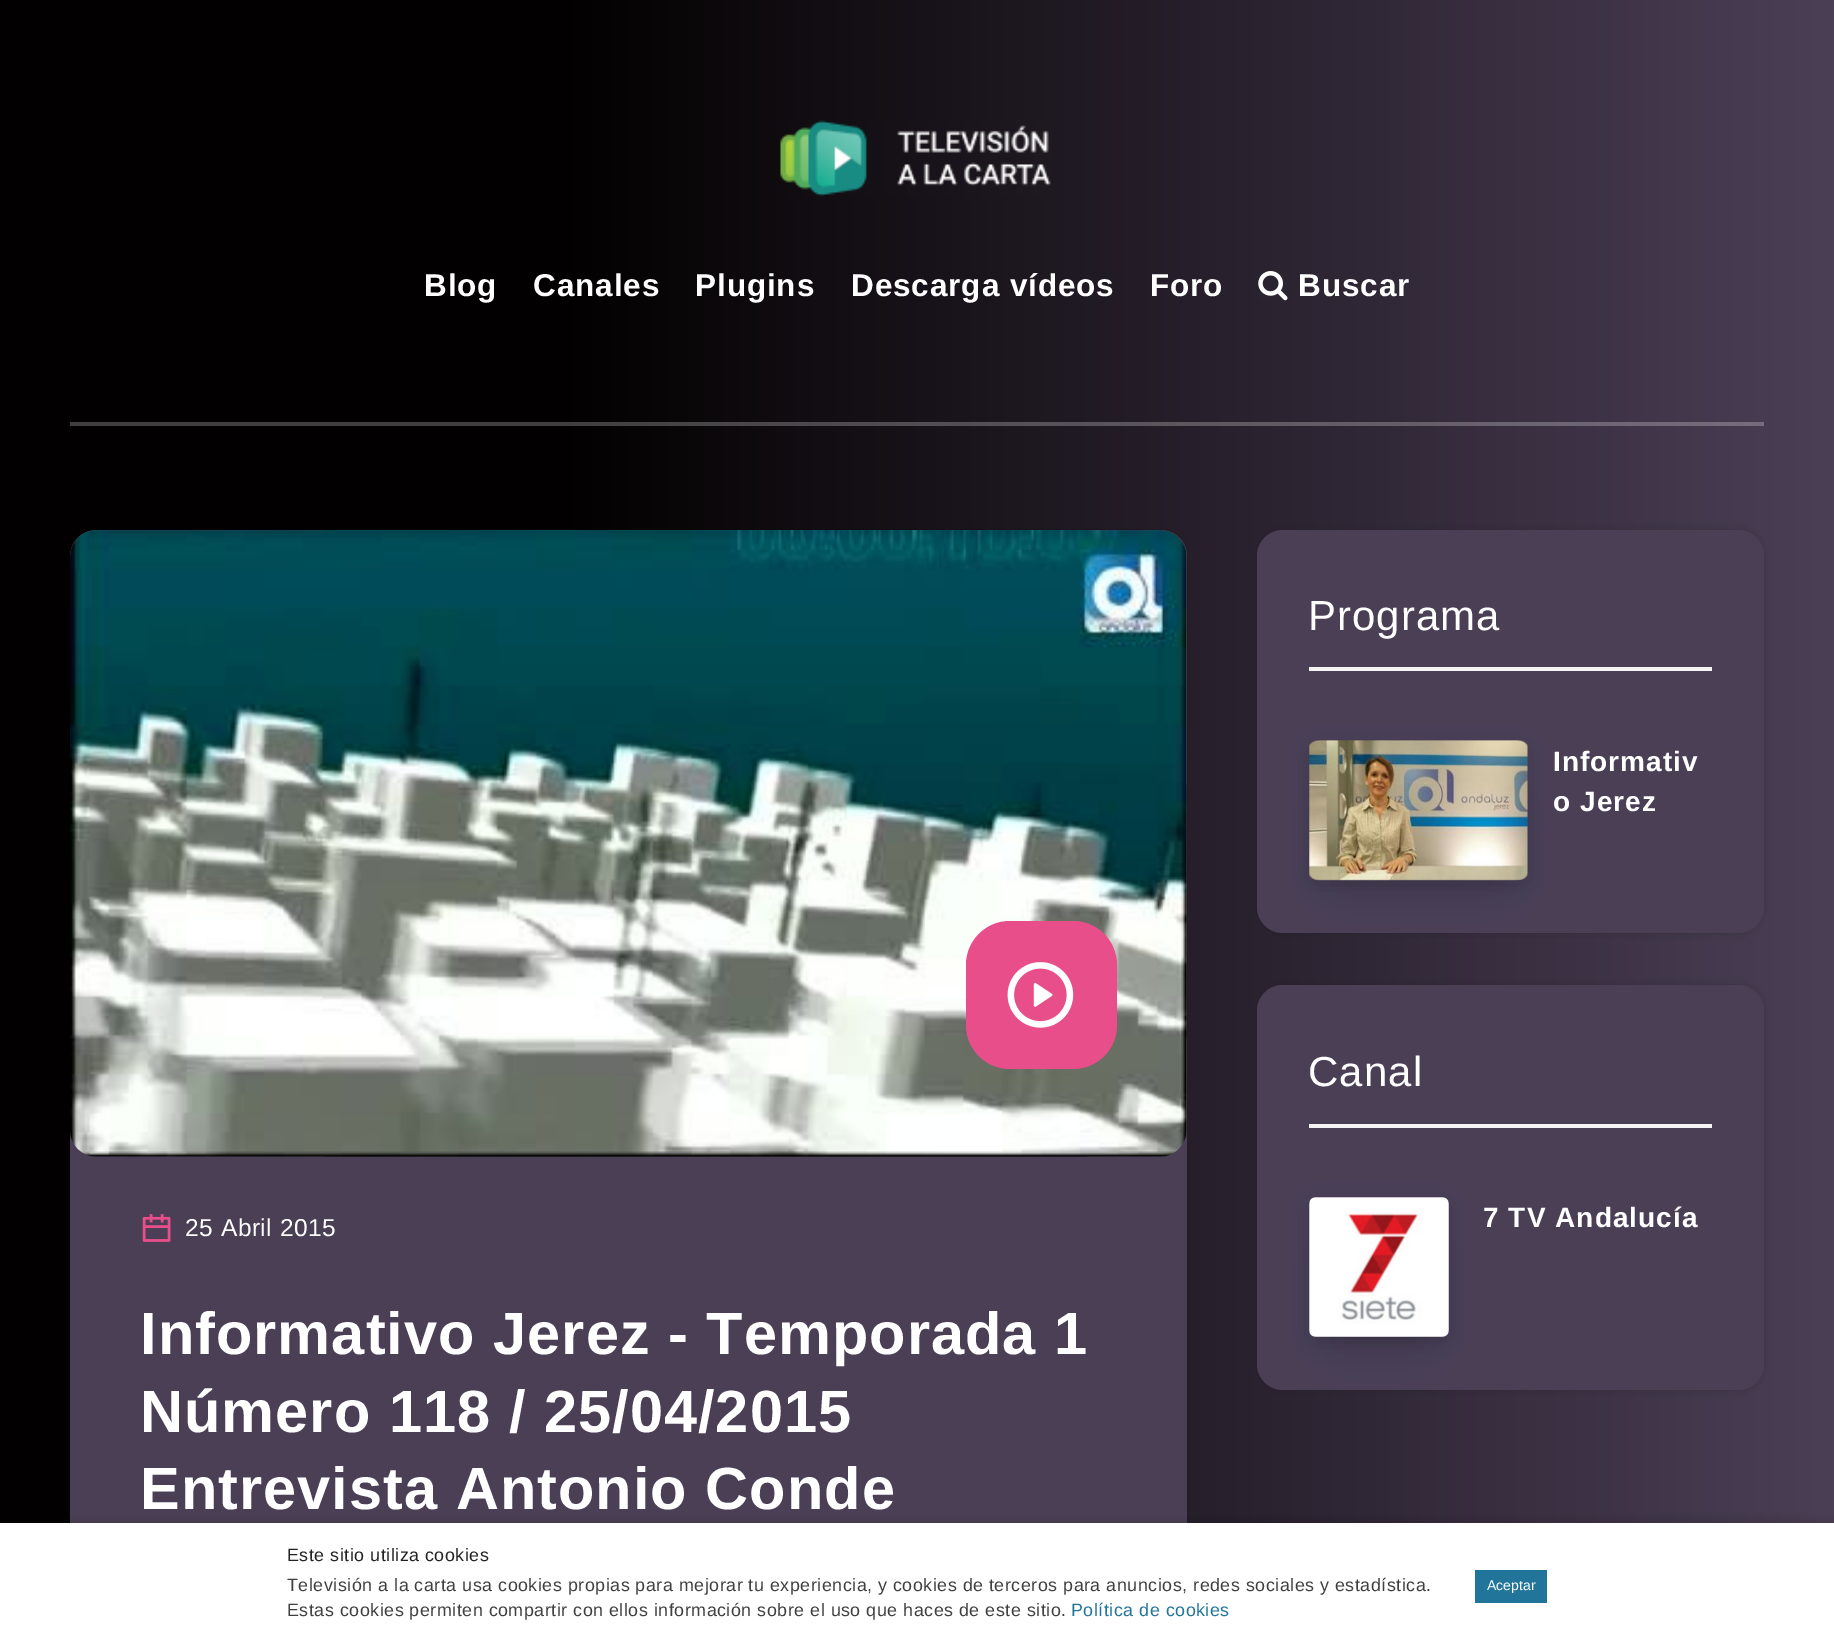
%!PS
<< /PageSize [1834 1650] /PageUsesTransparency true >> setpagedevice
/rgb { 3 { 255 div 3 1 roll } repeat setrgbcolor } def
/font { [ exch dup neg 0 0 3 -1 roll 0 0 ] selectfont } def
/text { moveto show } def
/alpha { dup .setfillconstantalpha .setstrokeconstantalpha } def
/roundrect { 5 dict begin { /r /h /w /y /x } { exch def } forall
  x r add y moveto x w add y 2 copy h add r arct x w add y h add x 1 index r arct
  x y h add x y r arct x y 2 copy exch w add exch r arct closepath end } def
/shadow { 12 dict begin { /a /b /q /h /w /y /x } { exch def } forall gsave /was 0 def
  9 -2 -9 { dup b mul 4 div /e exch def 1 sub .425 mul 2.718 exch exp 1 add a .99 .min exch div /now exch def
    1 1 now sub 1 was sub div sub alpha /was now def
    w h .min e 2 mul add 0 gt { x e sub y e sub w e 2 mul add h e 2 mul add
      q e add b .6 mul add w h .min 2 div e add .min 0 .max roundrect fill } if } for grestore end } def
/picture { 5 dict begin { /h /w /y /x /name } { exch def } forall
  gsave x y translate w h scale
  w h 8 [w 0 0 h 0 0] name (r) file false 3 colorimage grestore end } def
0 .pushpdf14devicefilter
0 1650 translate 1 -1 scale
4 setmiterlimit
255 255 255 rgb
0 0 1834 1650 rectfill
gsave 0 0 moveto 1834 0 rlineto 0 1523 rlineto -1834 0 rlineto closepath clip newpath
<< /ShadingType 2 /ColorSpace /DeviceRGB /Coords [0 825 1834 825] /Extend [true true] /Function << /FunctionType 3 /Domain [0 1] /Functions [<< /FunctionType 2 /Domain [0 1] /C0 [0.008 0 0] /C1 [0.008 0 0] /N 1 >> << /FunctionType 2 /Domain [0 1] /C0 [0.008 0 0] /C1 [0.294 0.247 0.337] /N 1 >>] /Bounds [0.3] /Encode [0 1 0 1] >> >> shfill grestore
gsave 70 422 moveto 1694 0 rlineto 0 4 rlineto -1694 0 rlineto closepath clip newpath
<< /ShadingType 2 /ColorSpace /DeviceRGB /Coords [0 825 1834 825] /Extend [true true] /Function << /FunctionType 3 /Domain [0 1] /Functions [<< /FunctionType 2 /Domain [0 1] /C0 [0.255 0.251 0.251] /C1 [0.255 0.251 0.251] /N 1 >> << /FunctionType 2 /Domain [0 1] /C0 [0.255 0.251 0.251] /C1 [0.471 0.435 0.502] /N 1 >>] /Bounds [0.3] /Encode [0 1 0 1] >> >> shfill grestore
(img_01.rgb) 780 120 271 77 picture
(img_02.rgb) 1258 271 30 30 picture
0 0 0 rgb
1257 530 507 403 26 5 0.15 shadow
75 63 86 rgb
1257 530 507 403 26 roundrect fill
244 244 244 rgb
1309 667 403 4 rectfill
7 10 25 rgb
1344 814 149 70 0 23.5 0.2 shadow
1311 747 215 137 5 10.5 0.2 shadow
(img_03.rgb) 1309 740 219 141 picture
0 0 0 rgb
1257 985 507 405 26 5 0.15 shadow
75 63 86 rgb
1257 985 507 405 26 roundrect fill
244 244 244 rgb
1309 1124 403 4 rectfill
7 10 25 rgb
1344 1271 70 70 0 23.5 0.2 shadow
1311 1204 136 137 5 10.5 0.2 shadow
(img_04.rgb) 1309 1197 140 140 picture
0 0 0 rgb
70 530 1117 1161 26 5 0.15 shadow
75 63 86 rgb
70 530 1117 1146 26 roundrect fill
(img_05.rgb) 70 530 1117 627 picture
232 78 137 rgb
966 921 151 148 44 roundrect fill
(img_06.rgb) 1007 962 67 66 picture
(img_07.rgb) 142 1214 29 28 picture
0 0 0 rgb
0 1517 1834 128 0 4.5 0.1 shadow
255 255 255 rgb
0 1523 1834 127 rectfill
33 117 155 rgb
1475 1570 72 33 rectfill
/LiberationSans-Bold 31.5 font
255 255 255 rgb
424 296 moveto 0.9 0 (Blog) ashow
533 296 moveto 0.9 0 (Canales) ashow
695 296 moveto 0.9 0 (Plugins) ashow
851 296 moveto 0.9 0 (Descarga vídeos) ashow
1150 296 moveto 0.9 0 (Foro) ashow
1298 296 moveto 0.9 0 (Buscar) ashow
/LiberationSans-Regular 42 font
1308 630 moveto 1.05 0 (Programa) ashow
/LiberationSans-Bold 28 font
1553 771 moveto 1.05 0 (Informativ) ashow
1553 811 moveto 1.05 0 (o Jerez) ashow
/LiberationSans-Regular 42 font
1308 1086 moveto 1.05 0 (Canal) ashow
/LiberationSans-Bold 28 font
1483 1227 moveto 1.05 0 (7 TV Andalucía) ashow
/LiberationSans-Regular 24.5 font
185 1236 moveto 0.53 0 (25 Abril 2015) ashow
/LiberationSans-Bold 59.5 font
140 1354 moveto 1.05 0 (Informativo Jerez - Temporada 1) ashow
140 1432 moveto 1.05 0 (Número 118 / 25/04/2015) ashow
140 1509 moveto 1.05 0 (Entrevista Antonio Conde) ashow
/LiberationSans-Regular 17.85 font
34 34 34 rgb
287 1561 moveto 0.53 0 (Este sitio utiliza cookies) ashow
64 64 64 rgb
287 1591 moveto 0.53 0 (Televisión a la carta usa cookies propias para mejorar tu experiencia, y cookies de terceros para anuncios, redes sociales y estadística.) ashow
287 1616 moveto 0.53 0 (Estas cookies permiten compartir con ellos información sobre el uso que haces de este sitio.) ashow
33 117 155 rgb
1071 1616 moveto 0.53 0 (Política de cookies) ashow
/LiberationSans-Regular 14 font
255 255 255 rgb
(Aceptar) 1487 1590 text
.poppdf14devicefilter showpage
